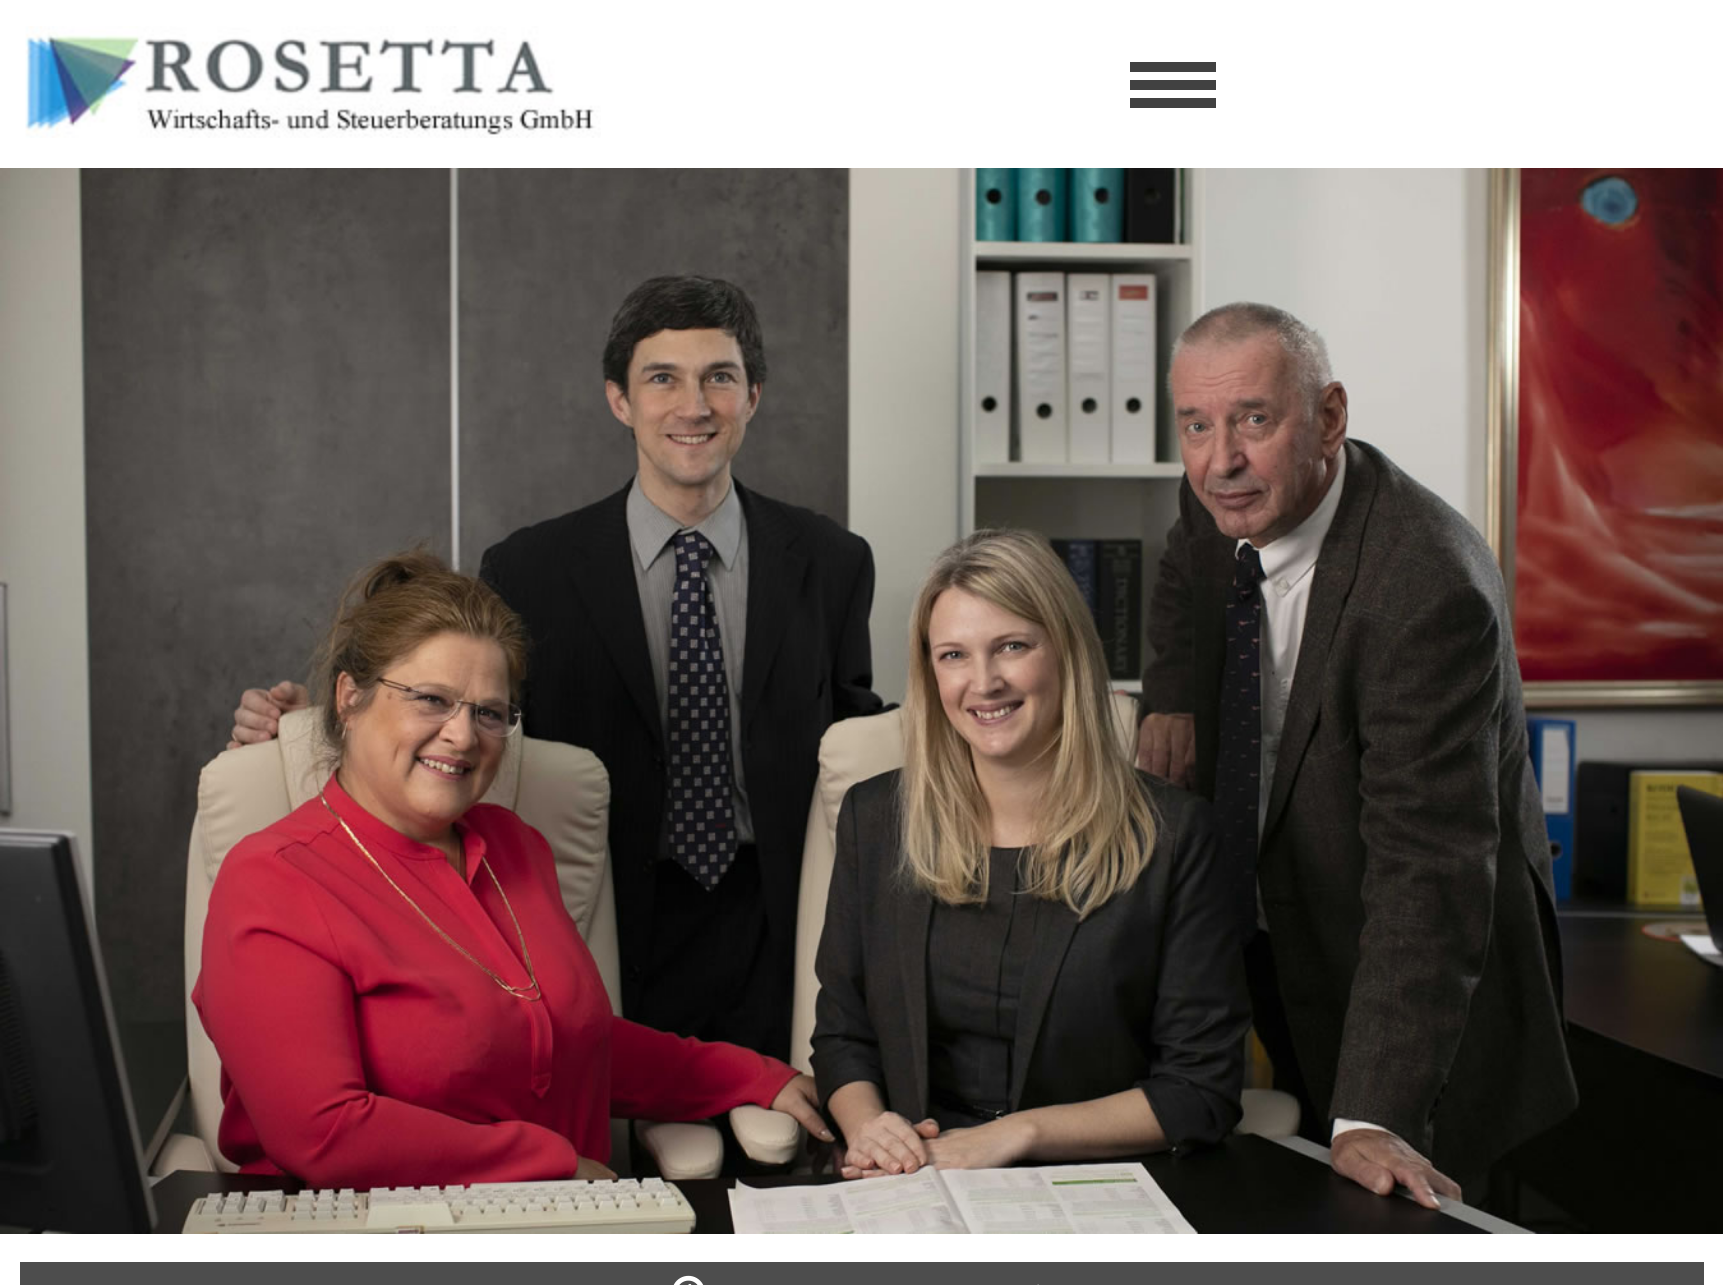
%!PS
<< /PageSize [1723 1285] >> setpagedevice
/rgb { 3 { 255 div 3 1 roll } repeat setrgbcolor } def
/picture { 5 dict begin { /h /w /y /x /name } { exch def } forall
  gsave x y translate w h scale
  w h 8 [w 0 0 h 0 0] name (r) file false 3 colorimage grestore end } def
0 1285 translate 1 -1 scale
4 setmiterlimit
255 255 255 rgb
0 0 1723 1285 rectfill
(img_01.rgb) 25 26 576 112 picture
65 65 65 rgb
1130 62 86 10 rectfill
1130 80 86 10 rectfill
1130 98 86 10 rectfill
(img_02.rgb) 0 168 1723 1066 picture
77 77 77 rgb
20 1262 1684 23 rectfill
(img_03.rgb) 673 1275 31 10 picture
(img_04.rgb) 1037 1284 2 1 picture
showpage
